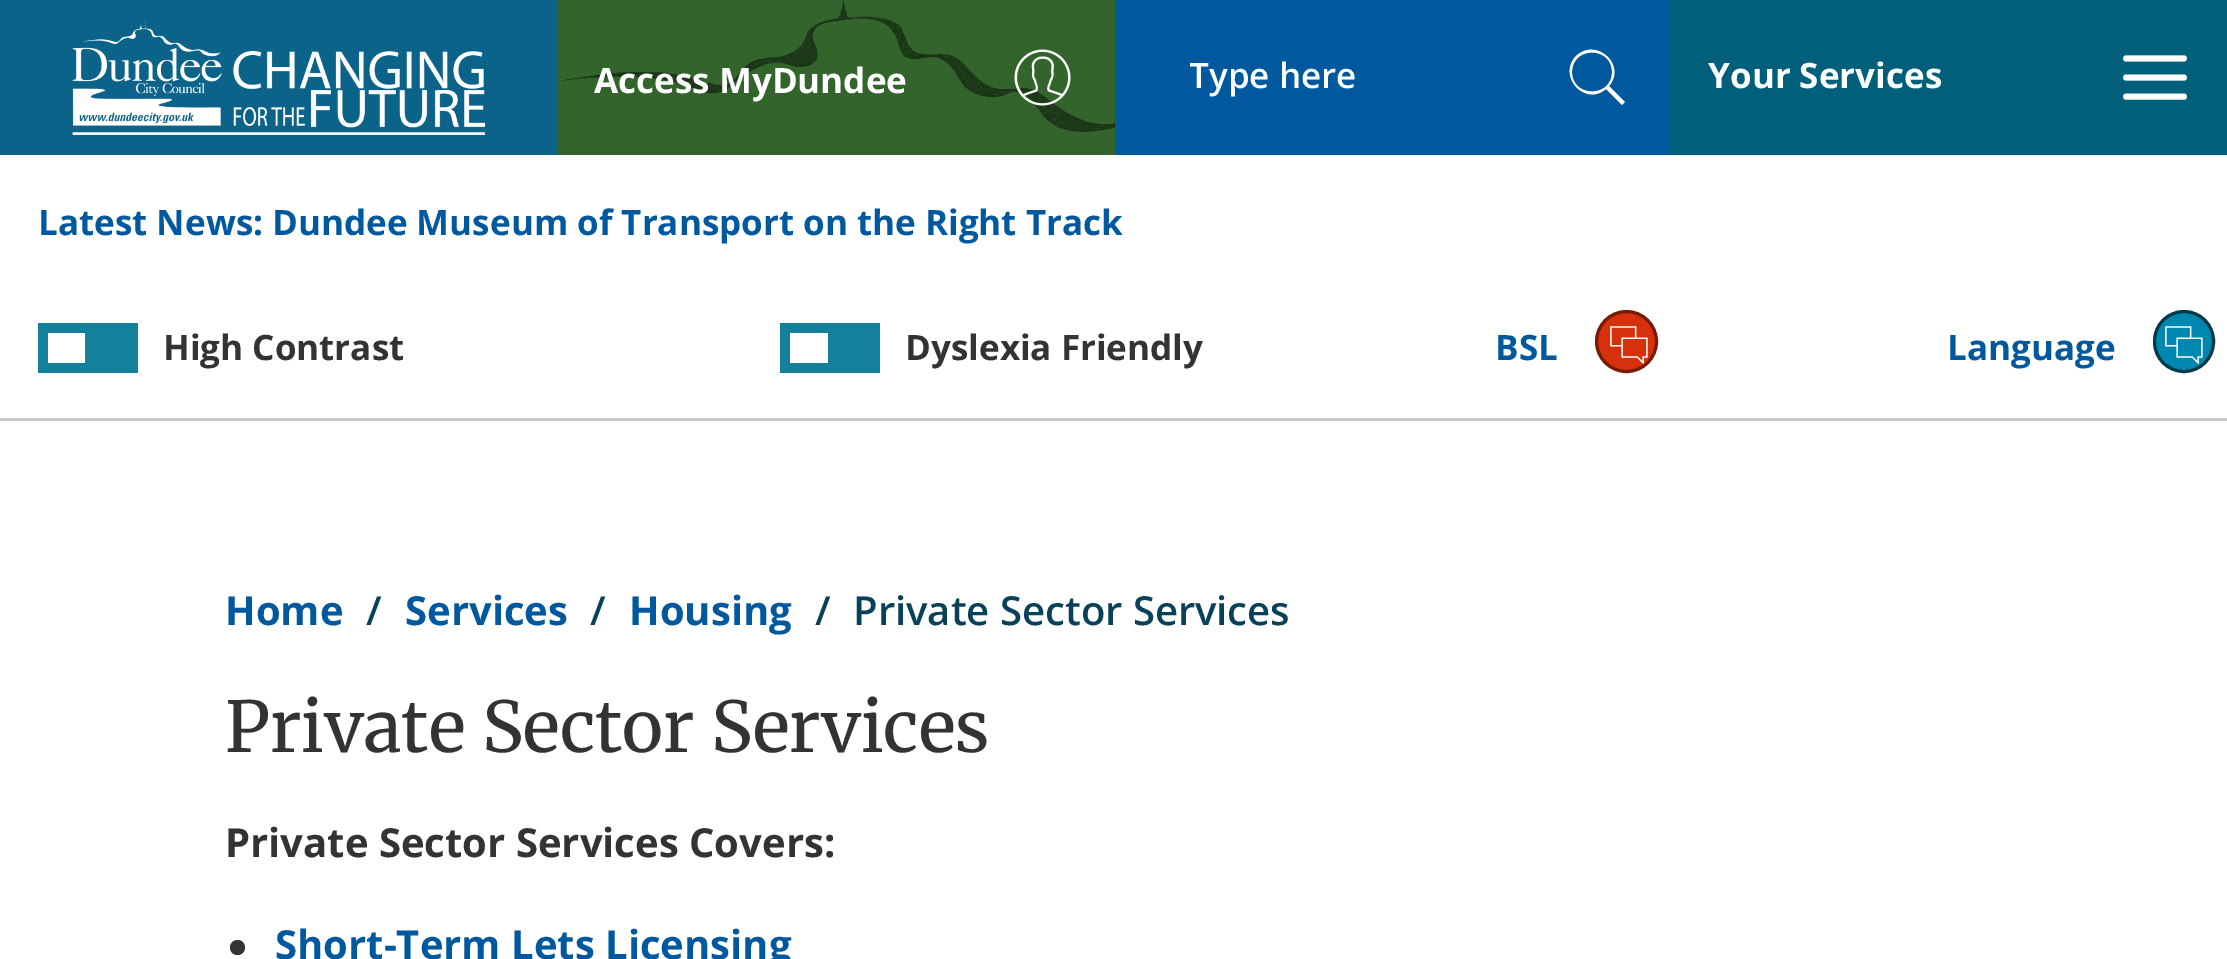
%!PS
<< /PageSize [2227 959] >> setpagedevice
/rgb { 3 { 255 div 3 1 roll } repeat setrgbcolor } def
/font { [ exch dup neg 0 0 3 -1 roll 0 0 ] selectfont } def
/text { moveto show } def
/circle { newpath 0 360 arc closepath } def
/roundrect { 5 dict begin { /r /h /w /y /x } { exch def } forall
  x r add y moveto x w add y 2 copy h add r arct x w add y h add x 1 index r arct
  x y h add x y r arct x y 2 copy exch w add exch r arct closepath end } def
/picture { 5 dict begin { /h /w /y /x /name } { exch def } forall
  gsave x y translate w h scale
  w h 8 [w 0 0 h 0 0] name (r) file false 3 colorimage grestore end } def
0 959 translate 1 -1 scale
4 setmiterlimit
255 255 255 rgb
0 0 2227 959 rectfill
200 200 200 rgb
0 418 2227 3 rectfill
12 99 137 rgb
0 0 558 155 rectfill
(img_01.rgb) 72 20 413 115 picture
50 100 44 rgb
558 0 557 155 rectfill
(img_02.rgb) 561 0 554 132 picture
(img_03.rgb) 1014 49 57 57 picture
0 89 159 rgb
1115 0 555 155 rectfill
255 255 255 rgb
1625 102 moveto -16 -16 rlineto 18 -21 -13 -49 -33 -30 rcurveto -19 20 9 51 30 33 rcurveto 16 16 rlineto closepath 1572 72 moveto 0 -26 40 -26 40 0 rcurveto 0 26 -40 26 -40 0 rcurveto closepath fill
0 96 124 rgb
1670 0 557 155 rectfill
(img_04.rgb) 2123 55 64 45 picture
19 128 157 rgb
38 323 100 50 rectfill
255 255 255 rgb
48 333 37 30 rectfill
19 128 157 rgb
780 323 100 50 rectfill
255 255 255 rgb
790 333 38 30 rectfill
215 48 13 rgb
1626.5 341.5 30 circle gsave fill grestore
119 26 7 rgb
3 setlinewidth
stroke
(img_05.rgb) 1610 326 38 38 picture
0 135 175 rgb
2154.5 311.5 59 60 29.5 roundrect gsave fill grestore
0 57 73 rgb
stroke
(img_06.rgb) 2165 326 38 38 picture
51 51 51 rgb
237.5 947.5 7.5 circle fill
/OpenSans-Bold 35 font
255 255 255 rgb
(Access MyDundee) 594 93 text
gsave
1190 50 170 50 rectclip
/OpenSans-SemiBold 35 font
(Type here) 1189 88 text
grestore
(Your Services) 1708 88 text
0 89 159 rgb
(Latest News: Dundee Museum of Transport on the Right Track) 38 235 text
51 51 51 rgb
(High Contrast) 163 360 text
(Dyslexia Friendly) 905 360 text
0 89 159 rgb
(BSL) 1495 360 text
(Language) 1947 360 text
/OpenSans-Bold 40 font
(Home) 225 625 text
/OpenSans-SemiBold 40 font
8 65 90 rgb
(/) 366 625 text
/OpenSans-Bold 40 font
0 89 159 rgb
(Services) 405 625 text
/OpenSans-SemiBold 40 font
8 65 90 rgb
(/) 590 625 text
/OpenSans-Bold 40 font
0 89 159 rgb
(Housing) 629 625 text
/OpenSans-SemiBold 40 font
8 65 90 rgb
(/) 815 625 text
(Private Sector Services) 853 625 text
/Merriweather-Regular 70 font
51 51 51 rgb
(Private Sector Services) 225 752 text
/OpenSans-Bold 40 font
(Private Sector Services Covers:) 225 857 text
0 89 159 rgb
(Short-Term Lets Licensing) 275 959 text
showpage
